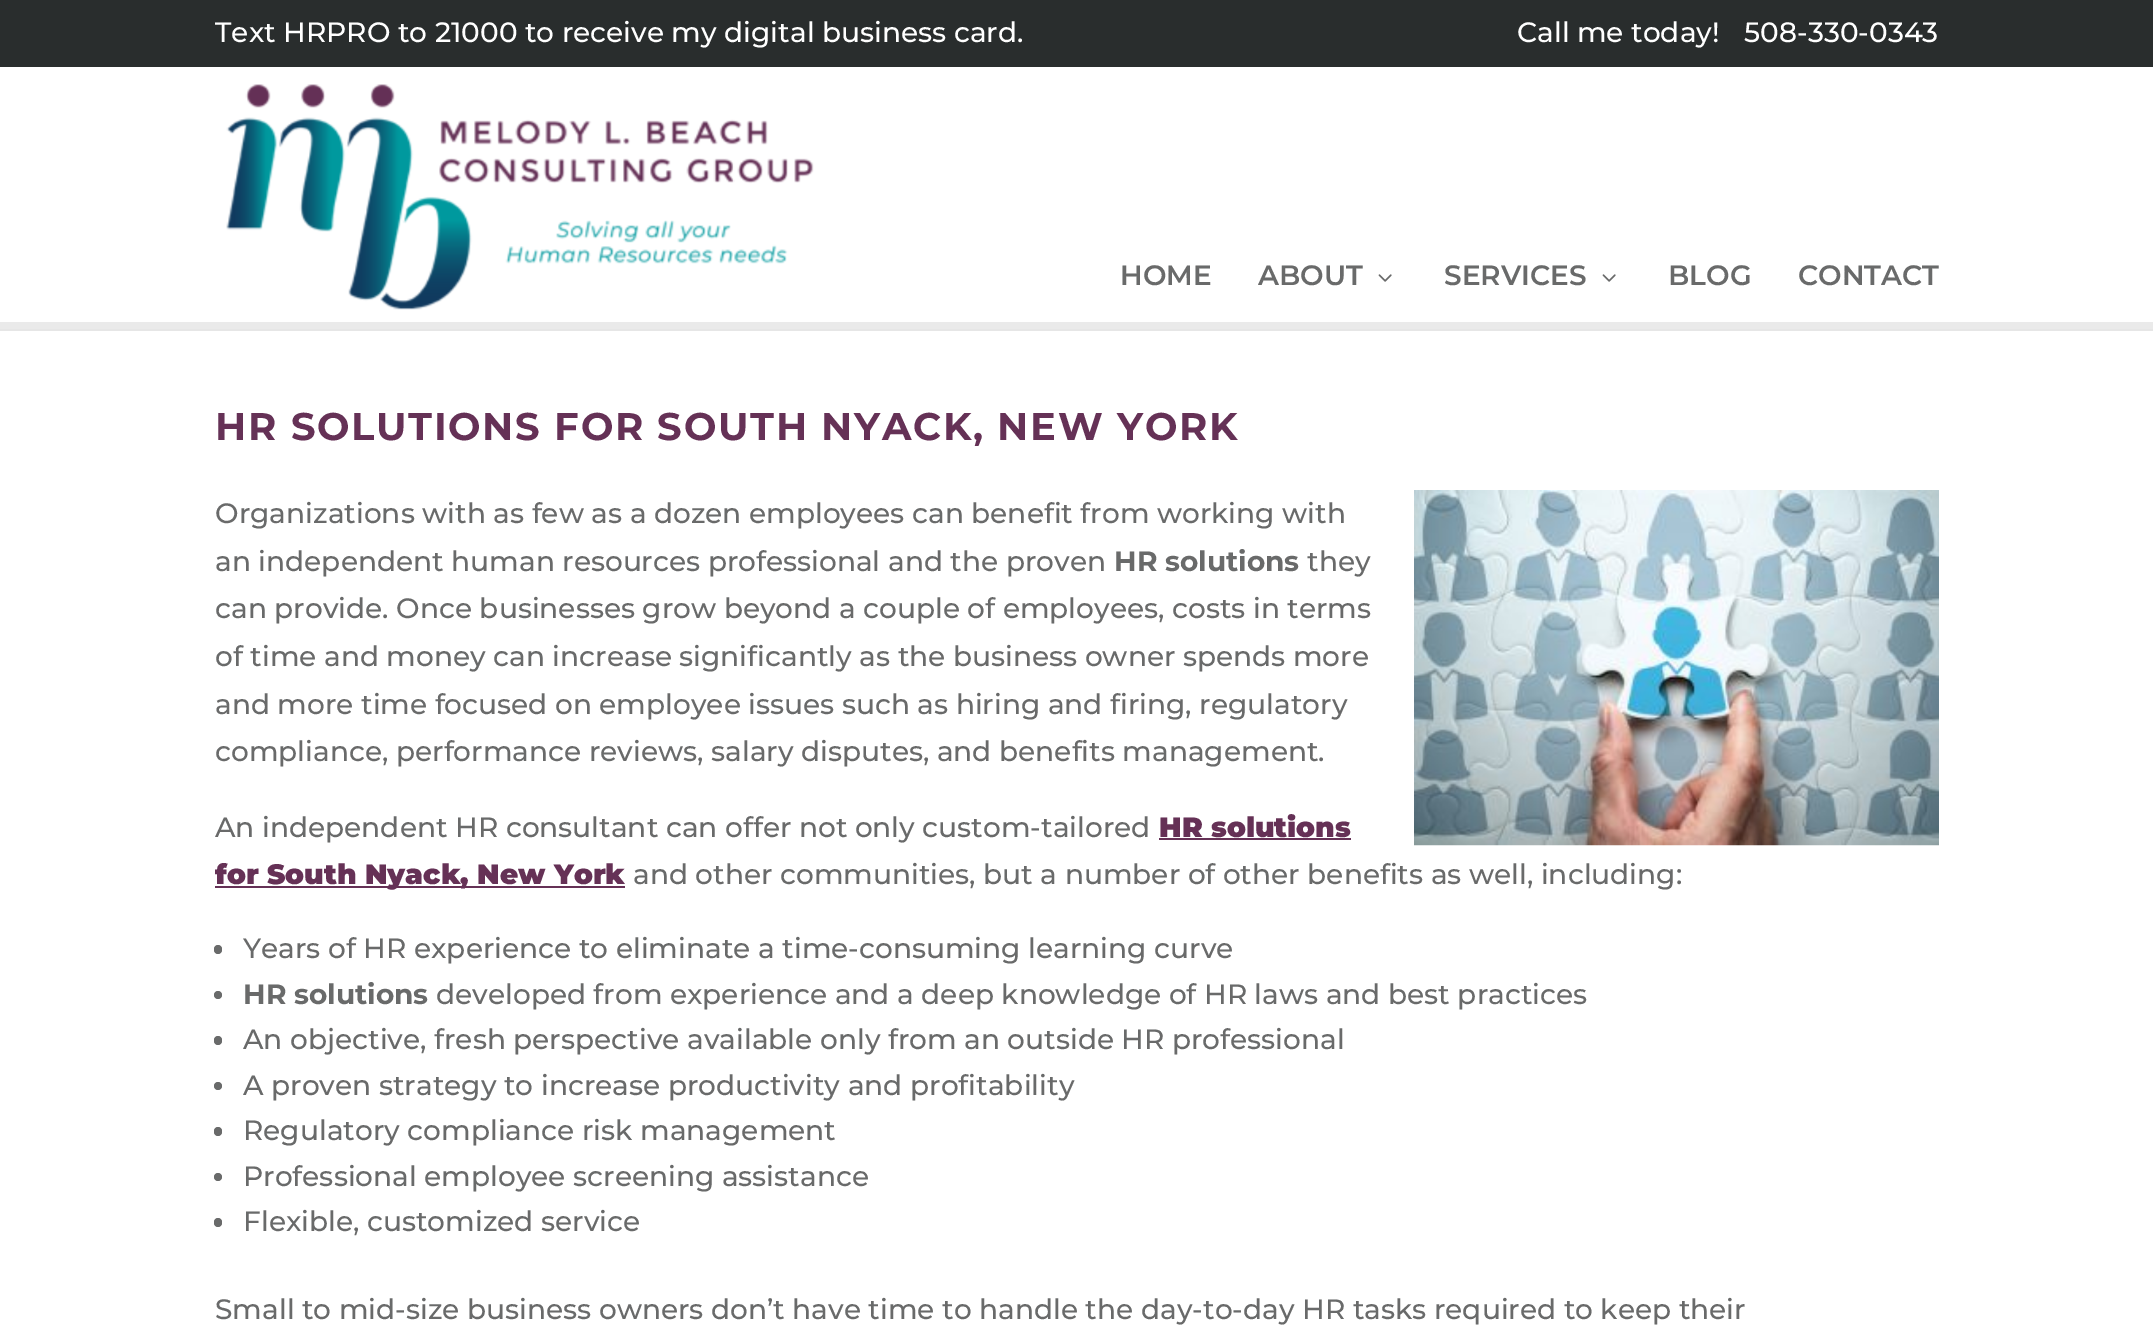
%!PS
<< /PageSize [2153 1341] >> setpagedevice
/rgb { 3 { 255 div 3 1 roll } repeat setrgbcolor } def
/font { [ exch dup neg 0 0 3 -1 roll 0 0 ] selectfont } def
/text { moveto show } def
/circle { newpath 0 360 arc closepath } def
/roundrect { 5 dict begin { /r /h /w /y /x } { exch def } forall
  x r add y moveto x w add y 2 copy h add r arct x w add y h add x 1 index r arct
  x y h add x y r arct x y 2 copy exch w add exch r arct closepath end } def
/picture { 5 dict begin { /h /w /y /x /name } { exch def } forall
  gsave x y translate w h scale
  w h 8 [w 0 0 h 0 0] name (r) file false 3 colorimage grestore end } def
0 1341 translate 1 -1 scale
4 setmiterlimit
255 255 255 rgb
0 0 2153 1341 rectfill
230 230 230 rgb
0 329 2153 2 rectfill
234 234 234 rgb
0 322 2153 7 rectfill
41 45 45 rgb
0 0 2153 67 rectfill
(img_01.rgb) 226 84 588 226 picture
(img_02.rgb) 1378 274 14 8 picture
(img_02.rgb) 1602 274 14 8 picture
(img_03.rgb) 1414 490 525 356 picture
101 49 86 rgb
1159 838 192 2 rectfill
215 886 410 2 rectfill
105 106 106 rgb
214 945 8 9 4 roundrect fill
218 995 4 circle fill
214 1036 8 9 4 roundrect fill
218 1086 4 circle fill
214 1127 8 9 4 roundrect fill
218 1177 4 circle fill
214 1218 8 9 4 roundrect fill
/Montserrat-Medium 28 font
255 255 255 rgb
(Text HRPRO to 21000 to receive my digital business card.) 215 42 text
(Call me today!) 1517 42 text
(508-330-0343) 1744 42 text
/Montserrat-SemiBold 28 font
105 106 106 rgb
(HOME) 1120 285 text
(ABOUT) 1258 285 text
(SERVICES) 1444 285 text
(BLOG) 1668 285 text
(CONTACT) 1798 285 text
/Montserrat-Bold 38.5 font
101 49 86 rgb
215 440 moveto 1.75 0 (HR SOLUTIONS FOR SOUTH NYACK, NEW YORK) ashow
/Montserrat-Medium 28 font
105 106 106 rgb
(Organizations with as few as a dozen employees can benefit from working with) 215 523 text
(an independent human resources professional and the proven) 215 571 text
/Montserrat-Bold 28 font
(HR solutions) 1114 571 text
/Montserrat-Medium 28 font
(they) 1307 571 text
(can provide. Once businesses grow beyond a couple of employees, costs in terms) 215 618 text
(of time and money can increase significantly as the business owner spends more) 215 666 text
(and more time focused on employee issues such as hiring and firing, regulatory) 215 714 text
(compliance, performance reviews, salary disputes, and benefits management.) 215 761 text
(An independent HR consultant can offer not only custom-tailored) 215 837 text
/Montserrat-Black 28 font
101 49 86 rgb
(HR solutions) 1159 837 text
(for South Nyack, New York) 215 884 text
/Montserrat-Medium 28 font
105 106 106 rgb
(and other communities, but a number of other benefits as well, including:) 633 884 text
(Years of HR experience to eliminate a time-consuming learning curve) 243 958 text
/Montserrat-Bold 28 font
(HR solutions) 243 1004 text
/Montserrat-Medium 28 font
(developed from experience and a deep knowledge of HR laws and best practices) 436 1004 text
(An objective, fresh perspective available only from an outside HR professional) 243 1049 text
(A proven strategy to increase productivity and profitability) 243 1095 text
(Regulatory compliance risk management) 243 1140 text
(Professional employee screening assistance) 243 1186 text
(Flexible, customized service) 243 1231 text
(Small to mid-size business owners don’t have time to handle the day-to-day HR tasks required to keep their) 215 1319 text
showpage
